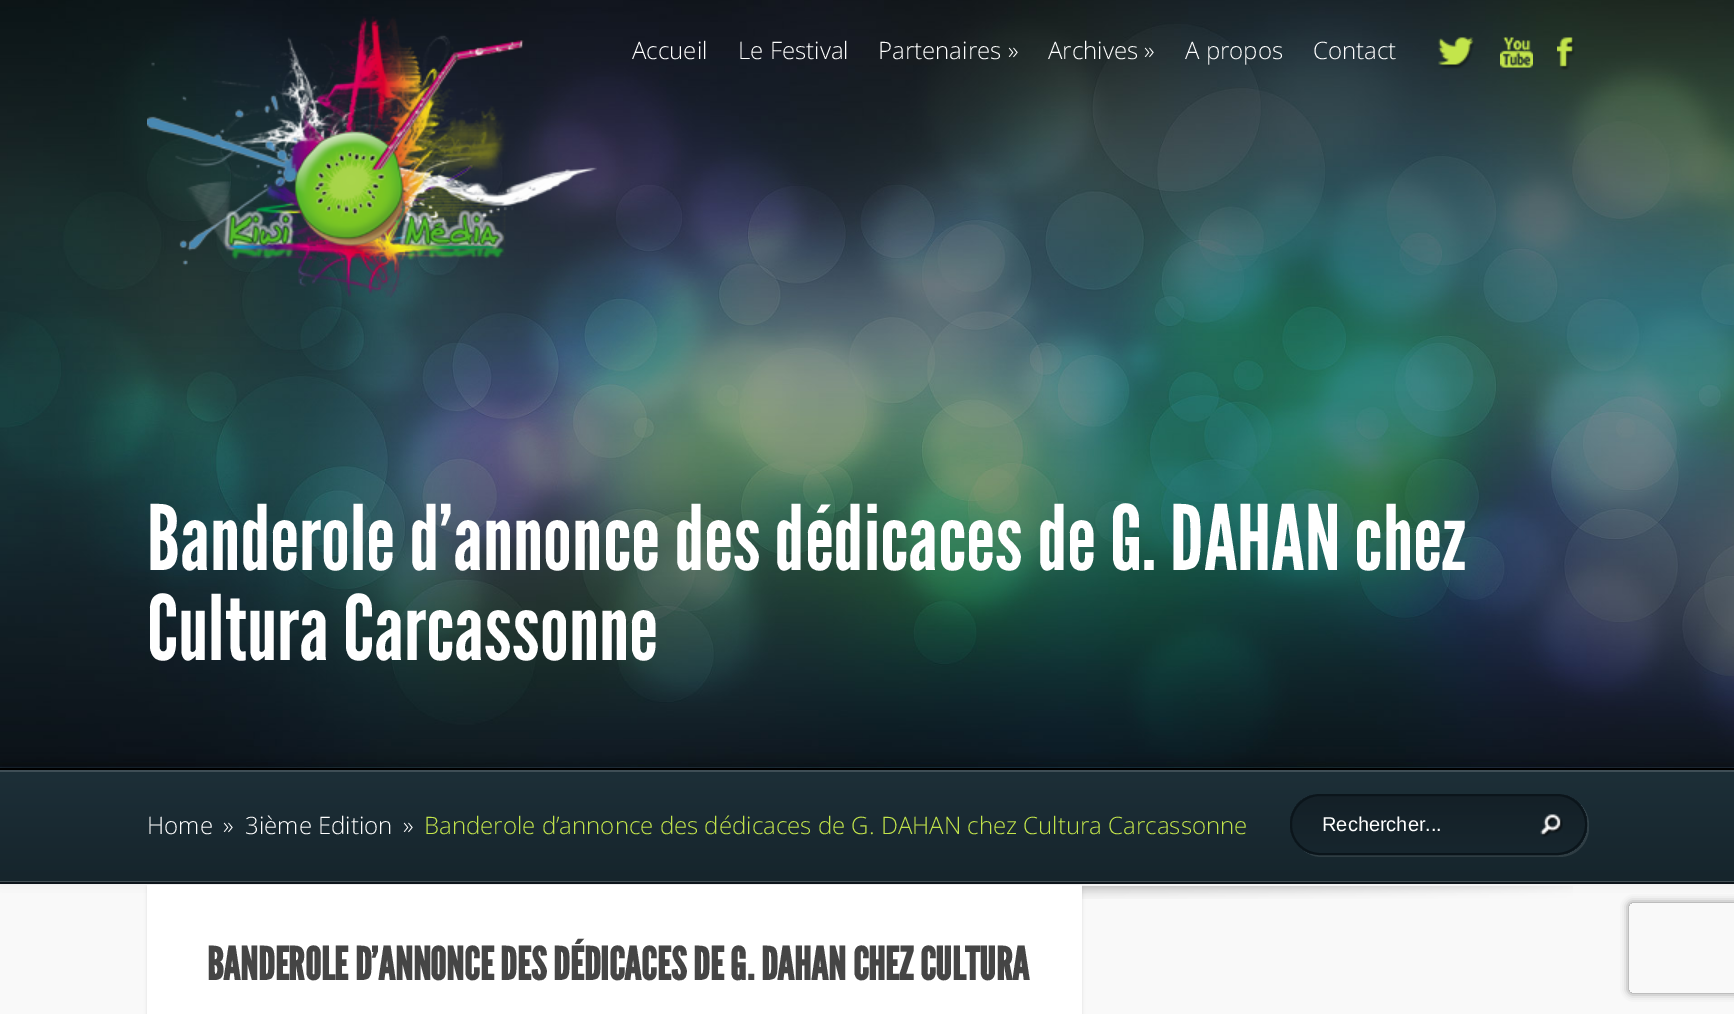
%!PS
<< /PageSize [1734 1014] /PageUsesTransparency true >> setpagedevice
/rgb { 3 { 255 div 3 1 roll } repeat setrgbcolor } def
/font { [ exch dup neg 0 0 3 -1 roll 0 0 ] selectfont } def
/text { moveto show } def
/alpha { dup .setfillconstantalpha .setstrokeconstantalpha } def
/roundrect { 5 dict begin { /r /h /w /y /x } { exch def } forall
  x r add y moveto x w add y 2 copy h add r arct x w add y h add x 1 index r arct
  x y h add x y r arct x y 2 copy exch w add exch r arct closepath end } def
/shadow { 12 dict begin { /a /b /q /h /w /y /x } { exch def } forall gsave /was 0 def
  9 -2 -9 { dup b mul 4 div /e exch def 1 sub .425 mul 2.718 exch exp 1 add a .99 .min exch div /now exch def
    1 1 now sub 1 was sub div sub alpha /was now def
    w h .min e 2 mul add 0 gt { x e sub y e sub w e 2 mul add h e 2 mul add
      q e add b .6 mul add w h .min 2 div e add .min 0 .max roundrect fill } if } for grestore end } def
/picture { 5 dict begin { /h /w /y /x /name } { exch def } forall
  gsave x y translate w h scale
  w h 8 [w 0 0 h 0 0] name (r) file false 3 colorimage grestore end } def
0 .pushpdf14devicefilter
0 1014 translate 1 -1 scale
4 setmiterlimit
249 249 249 rgb
0 0 1734 1014 rectfill
(img_01.rgb) 0 0 1734 768 picture
(img_02.rgb) 147 16 450 282 picture
(img_03.rgb) 1438 37 36 32 picture
(img_04.rgb) 1500 37 33 31 picture
(img_05.rgb) 1557 37 18 33 picture
(img_07.rgb) 1082 886 491 13 picture
0 0 0 rgb
0 761 1734 115 0 7.5 0.2 shadow
gsave 0 772 moveto 1734 0 rlineto 0 109 rlineto -1734 0 rlineto closepath clip newpath
<< /ShadingType 2 /ColorSpace /DeviceRGB /Coords [867 769 867 882] /Extend [true true] /Function << /FunctionType 2 /Domain [0 1] /C0 [0.114 0.184 0.22] /C1 [0.086 0.145 0.173] /N 1 >> >> shfill grestore
gsave 0 881 moveto 1734 0 rlineto 0 1 rlineto -1734 0 rlineto closepath clip newpath
<< /ShadingType 2 /ColorSpace /DeviceRGB /Coords [867 769 867 882] /Extend [true true] /Function << /FunctionType 2 /Domain [0 1] /C0 [0.29 0.349 0.376] /C1 [0.271 0.318 0.337] /N 1 >> >> shfill grestore
63 78 86 rgb
0 770 1734 2 rectfill
0 0 0 rgb
0 768 1734 2 rectfill
13 21 27 rgb
0 882 1734 2 rectfill
0.1 alpha
255 255 255 rgb
1300 847 moveto 5 6 13 10 22 10 rcurveto 237 0 rlineto 17 0 30 -13 30 -30 rcurveto 0 -2 rlineto 0 -10 -5 -19 -13 -25 rcurveto 7 6 11 14 11 24 rcurveto 0 1 rlineto 0 17 -13 30 -30 30 rcurveto -237 0 rlineto -8 0 -15 -3 -20 -8 rcurveto closepath fill
gsave
1290 794 297 61 30 roundrect clip newpath
1 alpha
gsave 1290 795 moveto 297 0 rlineto 0 59 rlineto -297 0 rlineto closepath clip newpath
<< /ShadingType 2 /ColorSpace /DeviceRGB /Coords [1439 795 1439 854] /Extend [true true] /Function << /FunctionType 2 /Domain [0 1] /C0 [0.078 0.125 0.153] /C1 [0.09 0.149 0.18] /N 1 >> >> shfill grestore
grestore
1 alpha
11 21 27 rgb
2 setlinewidth
1291 795 295 59 29 roundrect stroke
(img_06.rgb) 1540 814 23 23 picture
0 0 0 rgb
147 887 935 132 0 1.5 0.1 shadow
255 255 255 rgb
147 885 935 129 rectfill
gsave
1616 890 moveto 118 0 rlineto 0 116 rlineto -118 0 rlineto closepath 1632 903 moveto 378 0 rlineto 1.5 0 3 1.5 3 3 rcurveto 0 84 rlineto 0 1.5 -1.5 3 -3 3 rcurveto -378 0 rlineto -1.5 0 -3 -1.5 -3 -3 rcurveto 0 -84 rlineto 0 -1.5 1.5 -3 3 -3 rcurveto closepath eoclip newpath
128 128 128 rgb
1629 903 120 90 3 4 1 shadow
grestore
/OpenSans-Light 24 font
(Accueil) 632 59 text
(Le Festival) 738 59 text
(Partenaires ») 878 59 text
(Archives ») 1048 59 text
(A propos) 1185 59 text
(Contact) 1313 59 text
/LeagueGothic-Regular 90 font
(Banderole d’annonce des dédicaces de G. DAHAN chez) 147 570 text
(Cultura Carcassonne) 147 660 text
/OpenSans-Light 24 font
(Home) 147 834 text
(») 223 834 text
(3ième Edition) 245 834 text
(») 403 834 text
195 229 75 rgb
(Banderole d’annonce des dédicaces de G. DAHAN chez Cultura Carcassonne) 424 834 text
/LiberationSans-Regular 20 font
255 255 255 rgb
(Rechercher...) 1322 831 text
/LeagueGothic-Bold 45 font
69 69 69 rgb
(BANDEROLE D’ANNONCE DES DÉDICACES DE G. DAHAN CHEZ CULTURA) 207 980 text
.poppdf14devicefilter showpage
